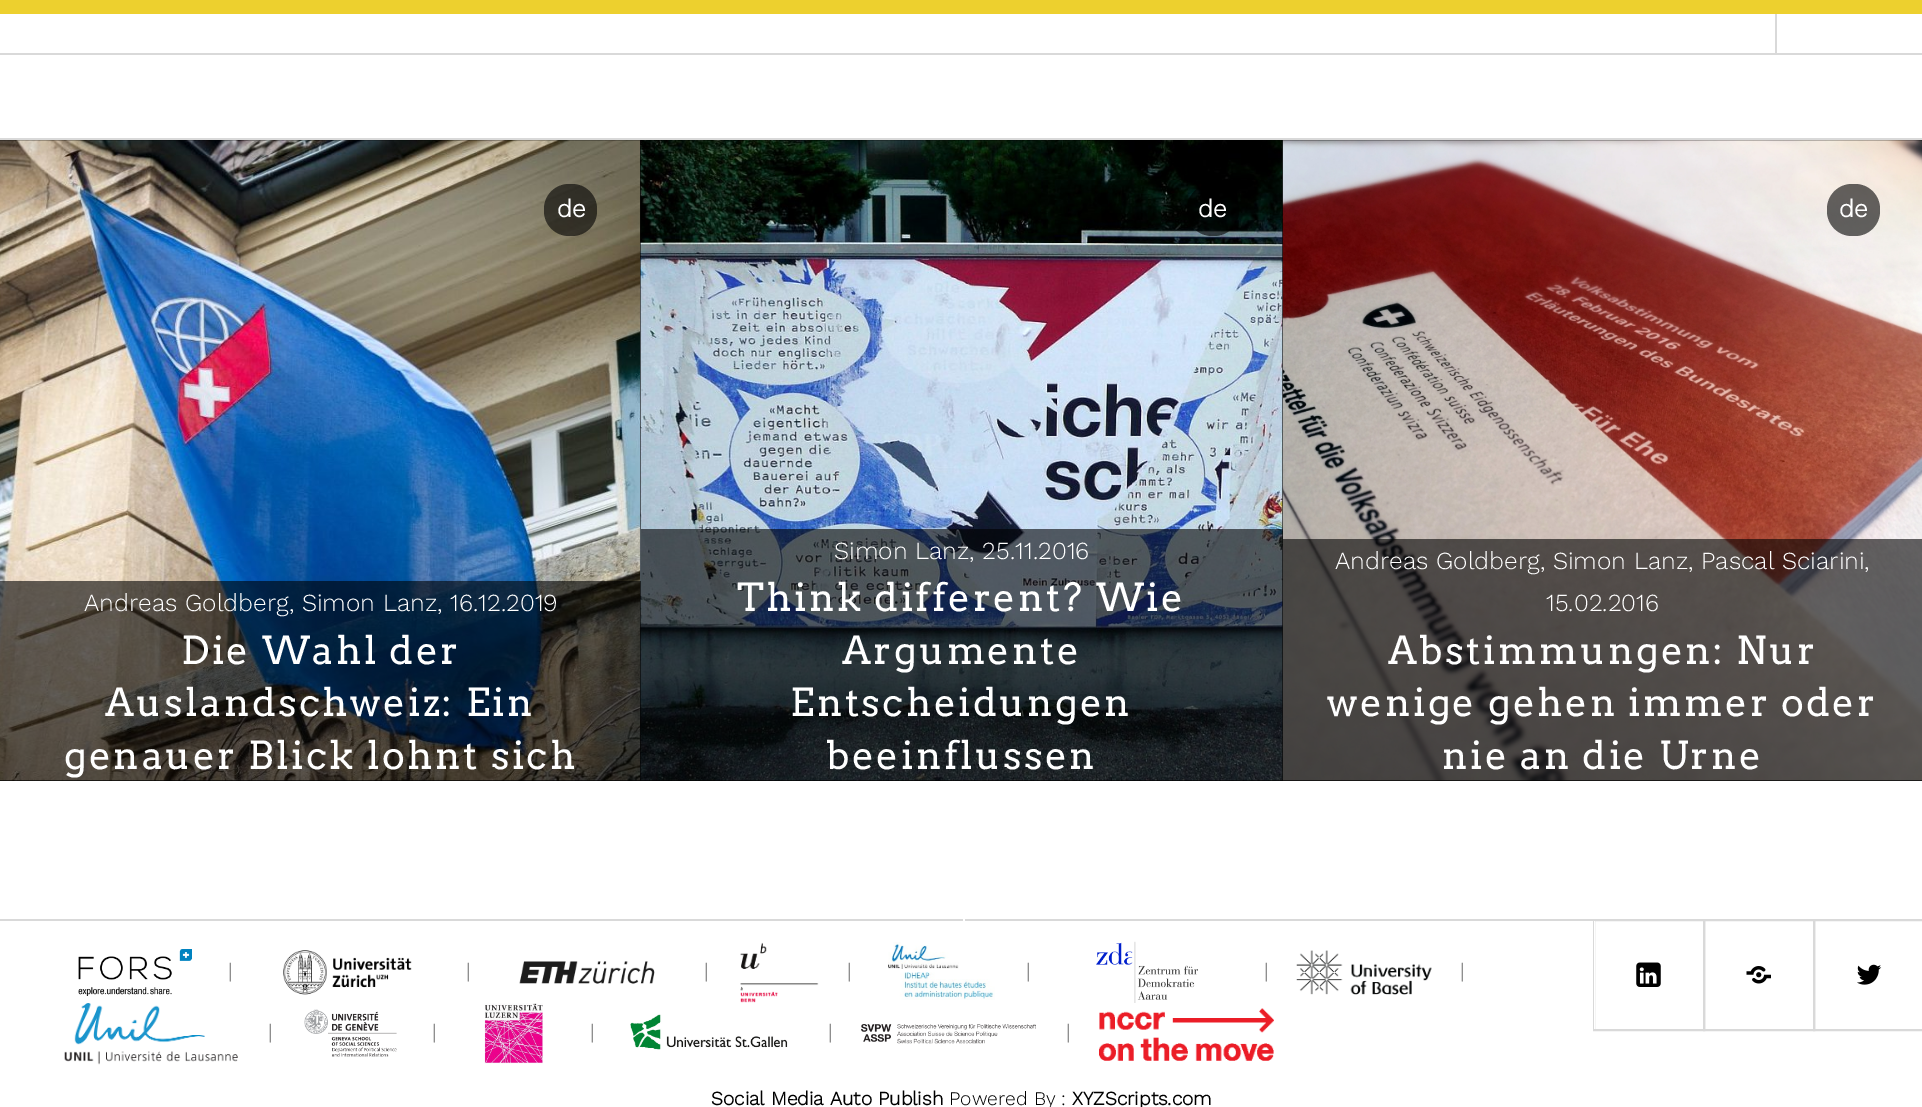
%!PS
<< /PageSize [1922 1107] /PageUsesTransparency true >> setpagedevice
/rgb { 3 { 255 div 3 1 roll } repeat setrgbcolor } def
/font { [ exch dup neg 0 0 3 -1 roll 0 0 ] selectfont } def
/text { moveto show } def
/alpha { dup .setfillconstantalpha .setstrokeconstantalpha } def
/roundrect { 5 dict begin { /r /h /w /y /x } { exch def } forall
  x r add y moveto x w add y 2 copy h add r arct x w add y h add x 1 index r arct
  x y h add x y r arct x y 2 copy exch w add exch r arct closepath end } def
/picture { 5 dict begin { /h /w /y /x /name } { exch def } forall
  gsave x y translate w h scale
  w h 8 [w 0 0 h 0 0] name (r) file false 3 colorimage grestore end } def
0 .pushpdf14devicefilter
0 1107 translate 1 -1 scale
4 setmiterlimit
255 255 255 rgb
0 0 1922 1107 rectfill
217 217 217 rgb
0 53 1922 2 rectfill
237 208 46 rgb
0 0 1922 14 rectfill
217 217 217 rgb
1775 14 2 39 rectfill
0 138 1922 2 rectfill
0 0 0 rgb
0 140 1922 641 rectfill
(img_01.rgb) 0 140 641 641 picture
0.6 alpha
544 184 53 52 25 roundrect fill
1 alpha
(img_02.rgb) 640 140 643 641 picture
0.6 alpha
0 581 641 200 rectfill
1187 184 52 52 25 roundrect fill
1 alpha
(img_03.rgb) 1282 140 640 641 picture
0.6 alpha
641 529 642 252 rectfill
1827 184 53 52 25 roundrect fill
1283 539 639 242 rectfill
1 alpha
217 217 217 rgb
0 919 1922 2 rectfill
255 255 255 rgb
963 919 2 2 rectfill
(img_04.rgb) 78 949 114 47 picture
(img_05.rgb) 283 950 129 45 picture
(img_06.rgb) 519 961 136 23 picture
(img_07.rgb) 740 942 79 61 picture
(img_08.rgb) 888 942 107 58 picture
(img_09.rgb) 1096 941 102 62 picture
(img_10.rgb) 1296 950 136 45 picture
(img_11.rgb) 64 1003 174 62 picture
(img_12.rgb) 304 1009 93 48 picture
(img_13.rgb) 484 1003 59 61 picture
(img_14.rgb) 630 1014 158 36 picture
(img_15.rgb) 861 1024 175 20 picture
(img_16.rgb) 1099 1008 175 53 picture
gsave
0 921 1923 164 rectclip
217 217 217 rgb
2 setlinewidth
1594 920 110 110 rectstroke
grestore
1594 921 1 108 rectfill
(img_17.rgb) 1636 962 25 25 picture
gsave
0 921 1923 164 rectclip
217 217 217 rgb
2 setlinewidth
1704 920 110 110 rectstroke
grestore
(img_18.rgb) 1746 966 25 18 picture
gsave
0 921 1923 164 rectclip
217 217 217 rgb
2 setlinewidth
1814 920 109 110 rectstroke
grestore
(img_19.rgb) 1857 964 25 21 picture
/WorkSans-Bold 24.5 font
(de) 557 217 text
/WorkSans-Light 24.5 font
(Andreas Goldberg, Simon Lanz, 16.12.2019) 84 611 text
/Arvo-Regular 38.5 font
181 664 moveto 2.4 0 (Die Wahl der) ashow
105 716 moveto 2.4 0 (Auslandschweiz: Ein) ashow
64 769 moveto 2.4 0 (genauer Blick lohnt sich) ashow
/WorkSans-Bold 24.5 font
(de) 1198 217 text
/WorkSans-Light 24.5 font
(Simon Lanz, 25.11.2016) 834 559 text
/Arvo-Regular 38.5 font
737 611 moveto 2.4 0 (Think different? Wie) ashow
842 664 moveto 2.4 0 (Argumente) ashow
790 716 moveto 2.4 0 (Entscheidungen) ashow
826 769 moveto 2.4 0 (beeinflussen) ashow
/WorkSans-Bold 24.5 font
(de) 1839 217 text
/WorkSans-Light 24.5 font
(Andreas Goldberg, Simon Lanz, Pascal Sciarini,) 1335 569 text
(15.02.2016) 1546 611 text
/Arvo-Regular 38.5 font
1388 664 moveto 2.4 0 (Abstimmungen: Nur) ashow
1327 716 moveto 2.4 0 (wenige gehen immer oder) ashow
1442 769 moveto 2.4 0 (nie an die Urne) ashow
/WorkSans-Light 21 font
102 102 102 rgb
(|) 228 978 text
(|) 466 978 text
(|) 704 978 text
(|) 847 978 text
(|) 1026 978 text
(|) 1264 978 text
(|) 1460 978 text
(|) 268 1039 text
(|) 432 1039 text
(|) 590 1039 text
(|) 828 1039 text
(|) 1066 1039 text
/WorkSans-Bold 19.25 font
0 0 0 rgb
(Social Media Auto Publish) 711 1105 text
/WorkSans-Light 19.25 font
(Powered By :) 949 1105 text
/WorkSans-Bold 19.25 font
(XYZScripts.com) 1072 1105 text
.poppdf14devicefilter showpage
